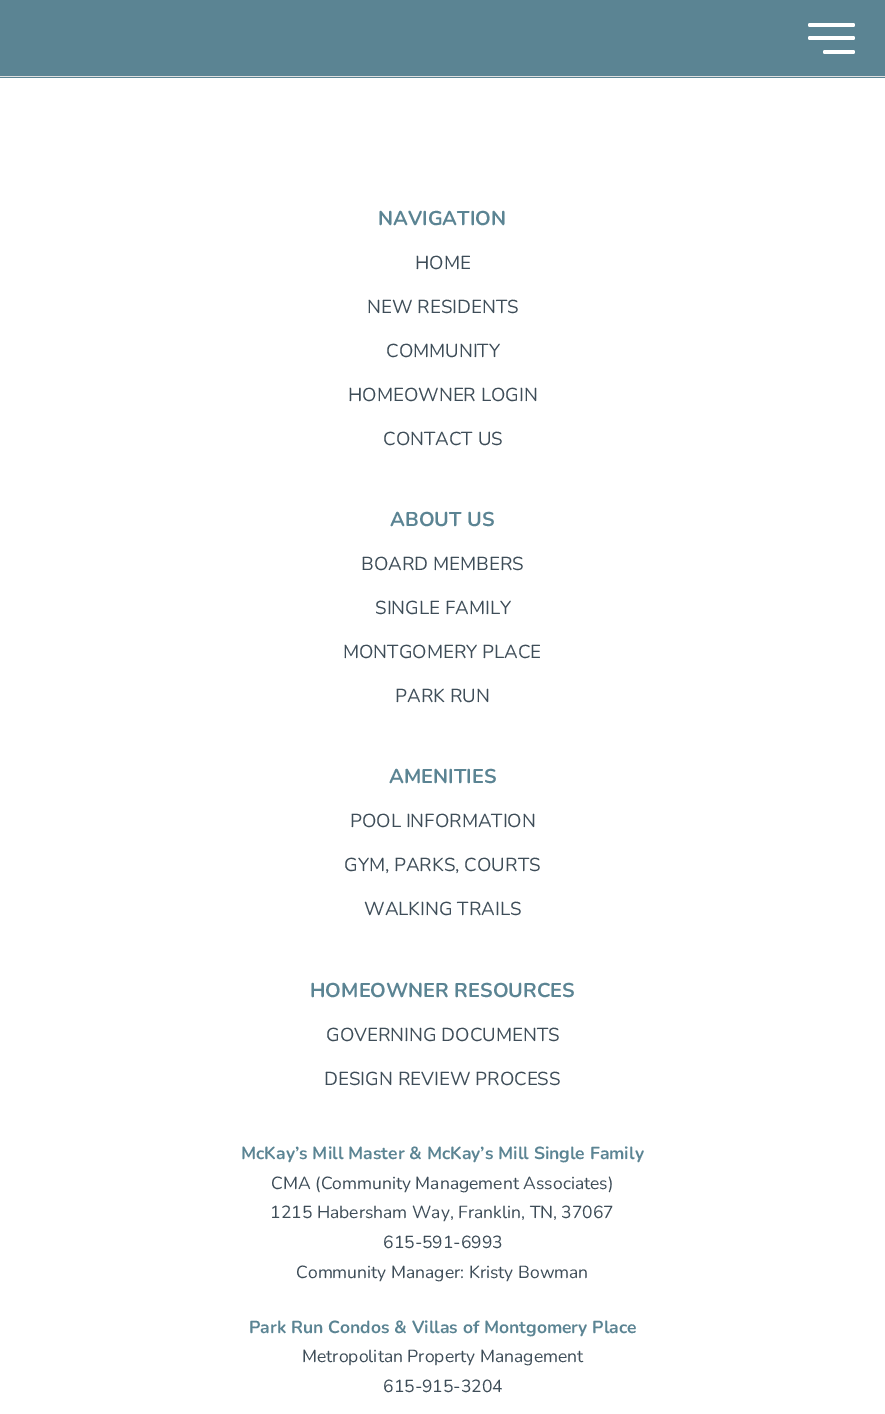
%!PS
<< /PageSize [885 1414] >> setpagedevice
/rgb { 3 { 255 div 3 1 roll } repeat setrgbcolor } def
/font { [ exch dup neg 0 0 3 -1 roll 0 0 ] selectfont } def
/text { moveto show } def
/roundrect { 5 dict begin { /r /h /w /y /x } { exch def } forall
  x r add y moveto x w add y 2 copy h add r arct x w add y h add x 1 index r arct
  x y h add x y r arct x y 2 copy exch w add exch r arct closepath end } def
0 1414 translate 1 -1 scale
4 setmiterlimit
255 255 255 rgb
0 0 885 1414 rectfill
91 132 147 rgb
0 0 885 78 rectfill
224 224 224 rgb
0 76 885 1 rectfill
255 255 255 rgb
808 23 47 4 2 roundrect fill
808 36 47 4 2 roundrect fill
823 50 32 4 2 roundrect fill
/Nunito-Bold 20 font
91 132 147 rgb
(NAVIGATION) 378 225 text
/Nunito-Regular 18.75 font
62 77 88 rgb
(HOME) 415 269 text
(NEW RESIDENTS) 367 313 text
(COMMUNITY) 386 357 text
(HOMEOWNER LOGIN) 348 401 text
(CONTACT US) 383 445 text
/Nunito-Bold 20 font
91 132 147 rgb
(ABOUT US) 390 526 text
/Nunito-Regular 18.75 font
62 77 88 rgb
(BOARD MEMBERS) 361 570 text
(SINGLE FAMILY) 375 614 text
(MONTGOMERY PLACE) 343 658 text
(PARK RUN) 395 702 text
/Nunito-Bold 20 font
91 132 147 rgb
(AMENITIES) 389 783 text
/Nunito-Regular 18.75 font
62 77 88 rgb
(POOL INFORMATION) 350 827 text
(GYM, PARKS, COURTS) 344 871 text
(WALKING TRAILS) 364 915 text
/Nunito-Bold 20 font
91 132 147 rgb
(HOMEOWNER RESOURCES) 310 997 text
/Nunito-Regular 18.75 font
62 77 88 rgb
(GOVERNING DOCUMENTS) 326 1041 text
(DESIGN REVIEW PROCESS) 324 1085 text
/Nunito-Bold 17.5 font
91 132 147 rgb
(McKay’s Mill Master & McKay’s Mill Single Family) 241 1159 text
/Nunito-Regular 17.5 font
62 77 88 rgb
(CMA \(Community Management Associates\)) 271 1189 text
(1215 Habersham Way, Franklin, TN, 37067) 270 1218 text
(615-591-6993) 383 1248 text
(Community Manager: Kristy Bowman) 296 1278 text
/Nunito-Bold 17.5 font
91 132 147 rgb
(Park Run Condos & Villas of Montgomery Place) 249 1333 text
/Nunito-Regular 17.5 font
62 77 88 rgb
(Metropolitan Property Management) 302 1362 text
(615-915-3204) 383 1392 text
showpage
